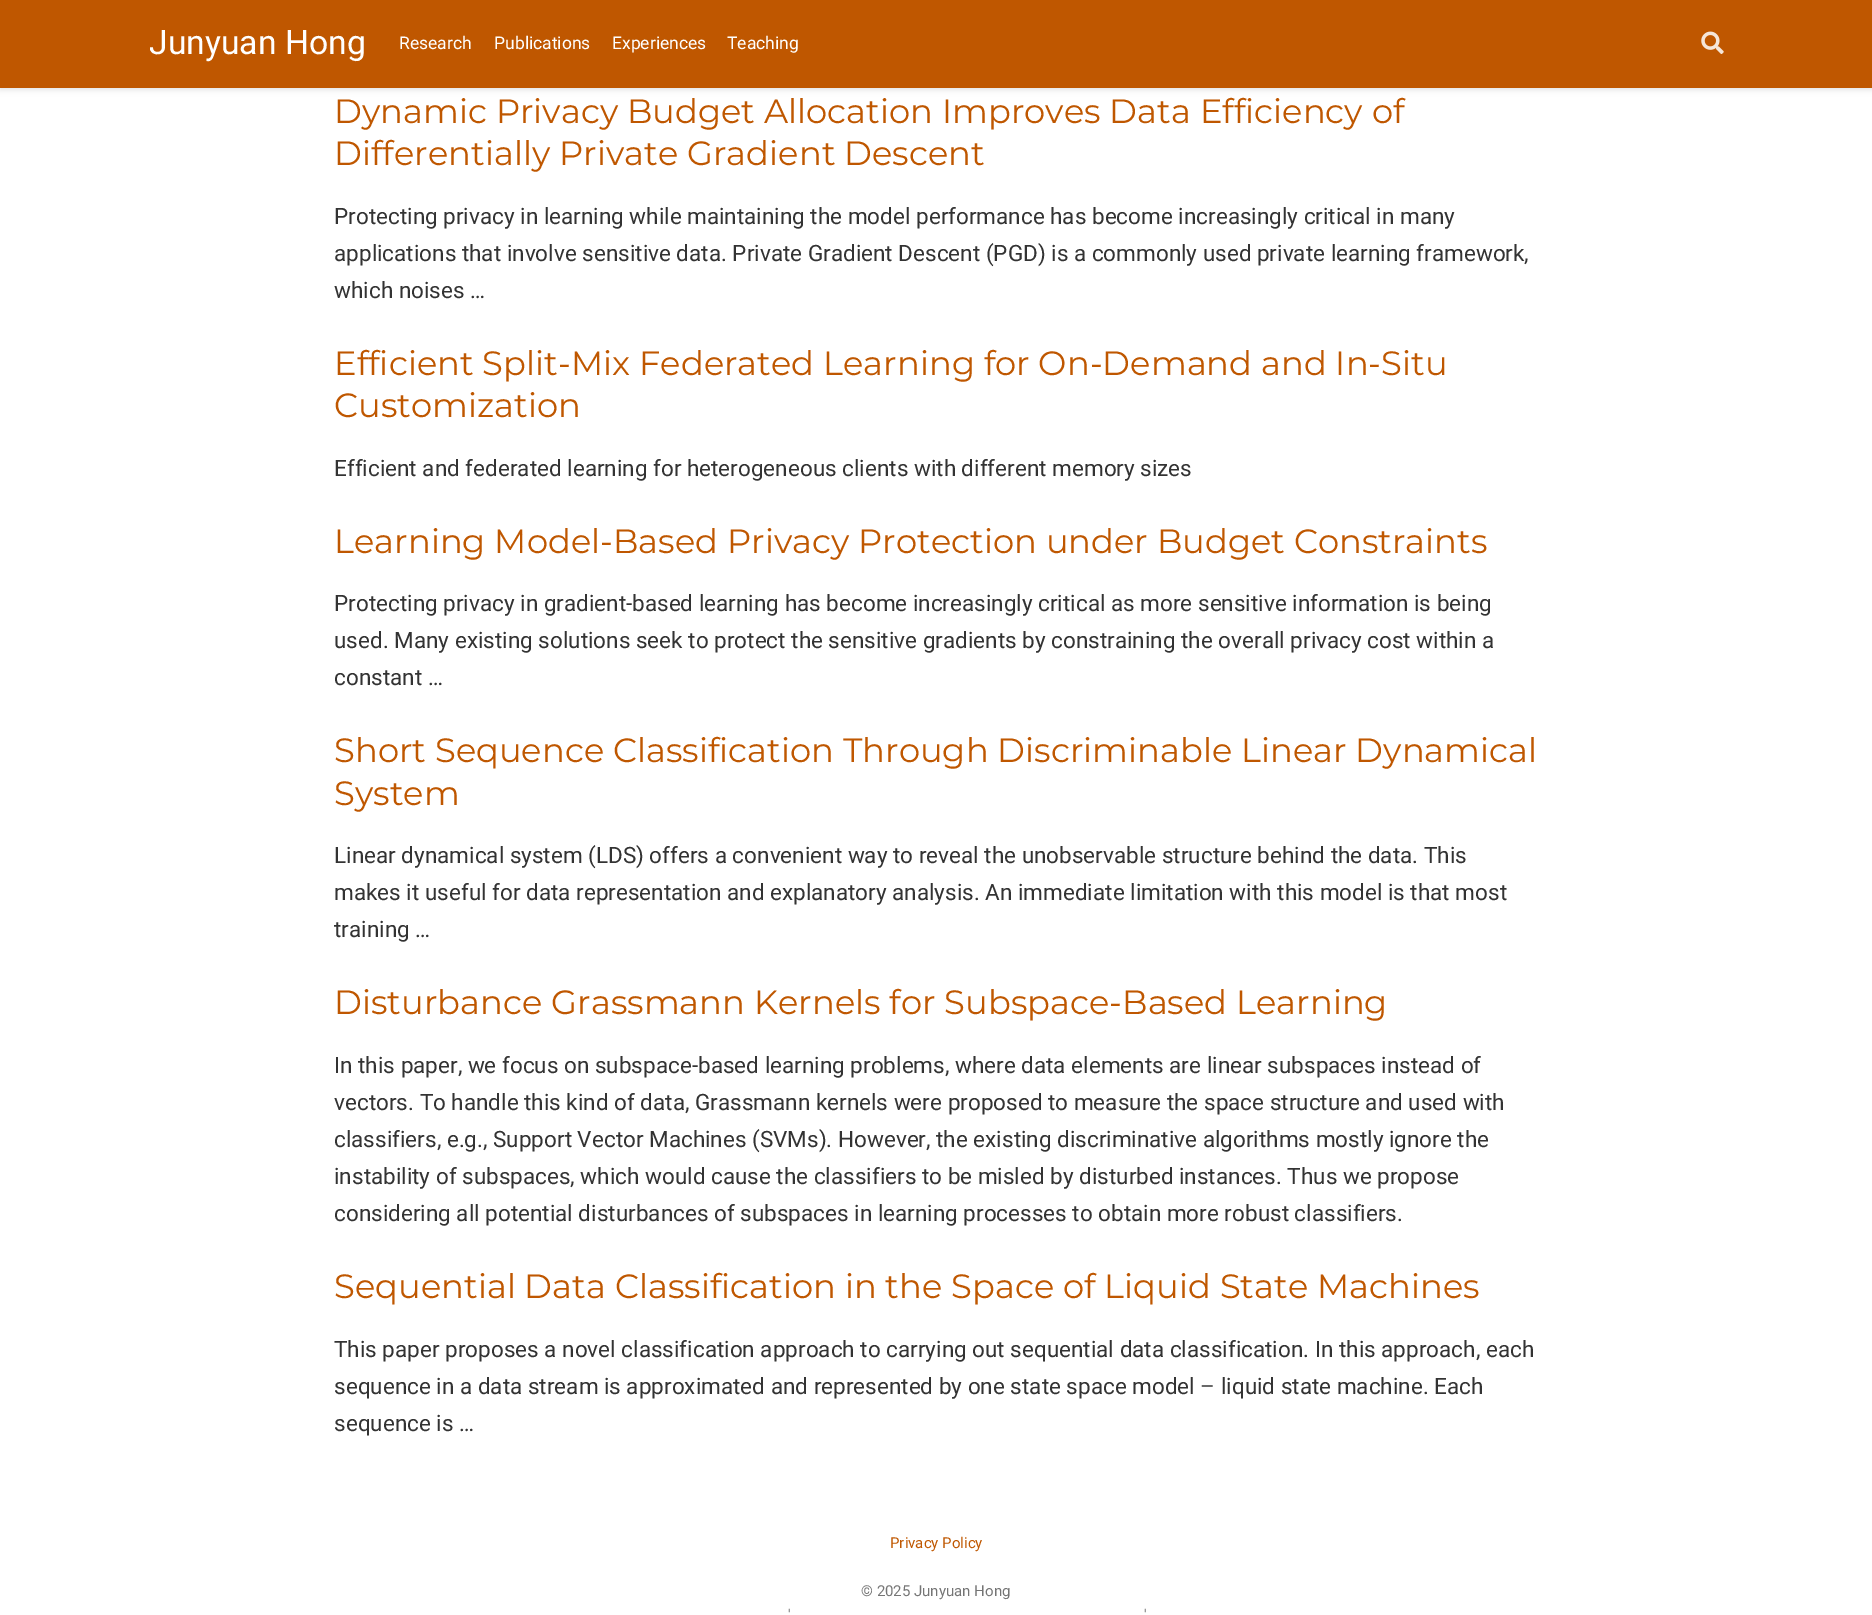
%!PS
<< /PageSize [1872 1615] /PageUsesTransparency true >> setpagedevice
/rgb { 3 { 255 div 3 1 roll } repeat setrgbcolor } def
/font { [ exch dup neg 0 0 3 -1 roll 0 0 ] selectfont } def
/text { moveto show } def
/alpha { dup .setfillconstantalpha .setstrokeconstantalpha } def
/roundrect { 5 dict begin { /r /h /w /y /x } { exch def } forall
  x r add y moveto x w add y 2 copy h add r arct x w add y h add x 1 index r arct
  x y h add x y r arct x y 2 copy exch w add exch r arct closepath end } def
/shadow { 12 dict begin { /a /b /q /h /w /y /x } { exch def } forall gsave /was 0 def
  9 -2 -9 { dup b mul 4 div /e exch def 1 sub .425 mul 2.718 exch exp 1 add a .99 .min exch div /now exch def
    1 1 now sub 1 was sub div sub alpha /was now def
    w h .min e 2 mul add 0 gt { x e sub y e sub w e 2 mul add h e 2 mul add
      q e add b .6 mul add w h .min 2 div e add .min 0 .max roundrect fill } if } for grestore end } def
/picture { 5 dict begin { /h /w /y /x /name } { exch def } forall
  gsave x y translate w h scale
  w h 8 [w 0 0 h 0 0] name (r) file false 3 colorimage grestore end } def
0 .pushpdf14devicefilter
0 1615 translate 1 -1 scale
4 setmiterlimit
255 255 255 rgb
0 0 1872 1615 rectfill
0 0 0 rgb
0 3 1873 87 0 3 0.11 shadow
191 87 0 rgb
0 0 1872 88 rectfill
(img_01.rgb) 1701 31 23 23 picture
/Roboto-Regular 33.75 font
255 255 255 rgb
(Junyuan Hong) 149 54 text
/Roboto-Regular 17.5 font
(Research) 399 49 text
(Publications) 494 49 text
(Experiences) 612 49 text
(Teaching) 727 49 text
/Montserrat-Regular 33.75 font
191 87 0 rgb
(Dynamic Privacy Budget Allocation Improves Data Efficiency of) 334 123 text
(Differentially Private Gradient Descent) 334 165 text
/Roboto-Regular 22.5 font
51 51 51 rgb
(Protecting privacy in learning while maintaining the model performance has become increasingly critical in many) 334 224 text
(applications that involve sensitive data. Private Gradient Descent \(PGD\) is a commonly used private learning framework,) 334 261 text
(which noises …) 334 298 text
/Montserrat-Regular 33.75 font
191 87 0 rgb
(Efficient Split-Mix Federated Learning for On-Demand and In-Situ) 334 375 text
(Customization) 334 417 text
/Roboto-Regular 22.5 font
51 51 51 rgb
(Efficient and federated learning for heterogeneous clients with different memory sizes) 334 476 text
/Montserrat-Regular 33.75 font
191 87 0 rgb
(Learning Model-Based Privacy Protection under Budget Constraints) 334 553 text
/Roboto-Regular 22.5 font
51 51 51 rgb
(Protecting privacy in gradient-based learning has become increasingly critical as more sensitive information is being) 334 611 text
(used. Many existing solutions seek to protect the sensitive gradients by constraining the overall privacy cost within a) 334 648 text
(constant …) 334 685 text
/Montserrat-Regular 33.75 font
191 87 0 rgb
(Short Sequence Classification Through Discriminable Linear Dynamical) 334 762 text
(System) 334 805 text
/Roboto-Regular 22.5 font
51 51 51 rgb
(Linear dynamical system \(LDS\) offers a convenient way to reveal the unobservable structure behind the data. This) 334 863 text
(makes it useful for data representation and explanatory analysis. An immediate limitation with this model is that most) 334 900 text
(training …) 334 937 text
/Montserrat-Regular 33.75 font
191 87 0 rgb
(Disturbance Grassmann Kernels for Subspace-Based Learning) 334 1014 text
/Roboto-Regular 22.5 font
51 51 51 rgb
(In this paper, we focus on subspace-based learning problems, where data elements are linear subspaces instead of) 334 1073 text
(vectors. To handle this kind of data, Grassmann kernels were proposed to measure the space structure and used with) 334 1110 text
(classifiers, e.g., Support Vector Machines \(SVMs\). However, the existing discriminative algorithms mostly ignore the) 334 1147 text
(instability of subspaces, which would cause the classifiers to be misled by disturbed instances. Thus we propose) 334 1184 text
(considering all potential disturbances of subspaces in learning processes to obtain more robust classifiers.) 334 1221 text
/Montserrat-Regular 33.75 font
191 87 0 rgb
(Sequential Data Classification in the Space of Liquid State Machines) 334 1298 text
/Roboto-Regular 22.5 font
51 51 51 rgb
(This paper proposes a novel classification approach to carrying out sequential data classification. In this approach, each) 334 1357 text
(sequence in a data stream is approximated and represented by one state space model – liquid state machine. Each) 334 1394 text
(sequence is …) 334 1431 text
/Roboto-Regular 15 font
191 87 0 rgb
(Privacy Policy) 890 1548 text
117 117 117 rgb
(© 2025 Junyuan Hong) 861 1596 text
(') 788 1620 text
(') 1144 1620 text
.poppdf14devicefilter showpage
